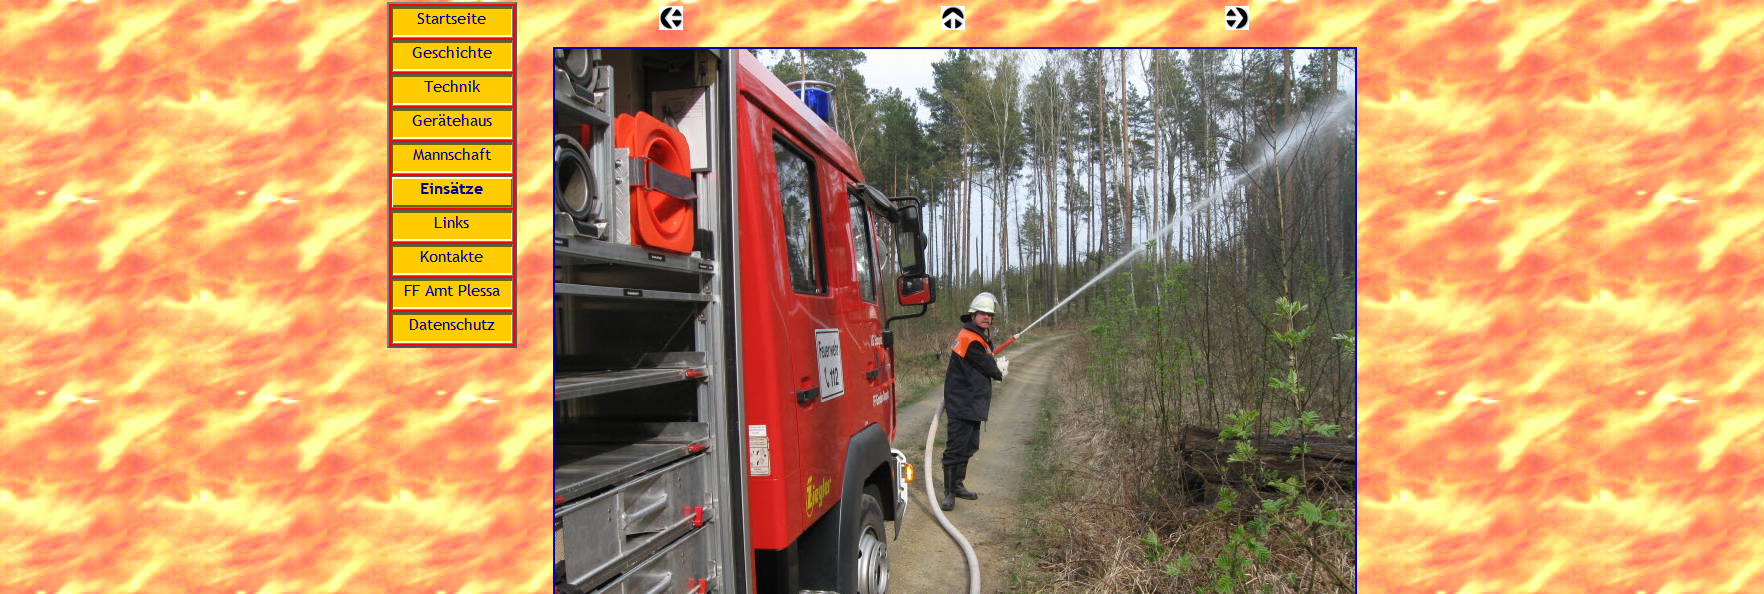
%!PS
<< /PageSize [1764 594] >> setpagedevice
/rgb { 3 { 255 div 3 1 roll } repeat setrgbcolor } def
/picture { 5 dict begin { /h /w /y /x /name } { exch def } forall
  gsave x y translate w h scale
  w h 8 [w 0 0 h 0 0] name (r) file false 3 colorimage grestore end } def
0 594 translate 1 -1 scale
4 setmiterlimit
255 255 255 rgb
0 0 1764 594 rectfill
(img_01.rgb) 0 0 1764 594 picture
255 0 0 rgb
387 2 130 346 rectfill
128 128 128 rgb
387 2 moveto 130 0 rlineto -2 2 rlineto -126 0 rlineto closepath fill
85 85 85 rgb
517 2 moveto 0 346 rlineto -2 -2 rlineto 0 -342 rlineto closepath fill
517 348 moveto -130 0 rlineto 2 -2 rlineto 126 0 rlineto closepath fill
128 128 128 rgb
387 348 moveto 0 -346 rlineto 2 2 rlineto 0 342 rlineto closepath fill
85 85 85 rgb
391 6 122 1 rectfill
128 128 128 rgb
512 6 1 32 rectfill
391 37 122 1 rectfill
85 85 85 rgb
391 6 1 32 rectfill
(img_02.rgb) 392 7 120 30 picture
391 40 122 1 rectfill
128 128 128 rgb
512 40 1 32 rectfill
391 71 122 1 rectfill
85 85 85 rgb
391 40 1 32 rectfill
(img_03.rgb) 392 41 120 30 picture
391 74 122 1 rectfill
128 128 128 rgb
512 74 1 32 rectfill
391 105 122 1 rectfill
85 85 85 rgb
391 74 1 32 rectfill
(img_04.rgb) 392 75 120 30 picture
391 108 122 1 rectfill
128 128 128 rgb
512 108 1 32 rectfill
391 139 122 1 rectfill
85 85 85 rgb
391 108 1 32 rectfill
(img_05.rgb) 392 109 120 30 picture
391 142 122 1 rectfill
128 128 128 rgb
512 142 1 32 rectfill
391 173 122 1 rectfill
85 85 85 rgb
391 142 1 32 rectfill
(img_06.rgb) 392 143 120 30 picture
391 176 122 1 rectfill
128 128 128 rgb
512 176 1 32 rectfill
391 207 122 1 rectfill
85 85 85 rgb
391 176 1 32 rectfill
(img_07.rgb) 392 177 120 30 picture
391 210 122 1 rectfill
128 128 128 rgb
512 210 1 32 rectfill
391 241 122 1 rectfill
85 85 85 rgb
391 210 1 32 rectfill
(img_08.rgb) 392 211 120 30 picture
391 244 122 1 rectfill
128 128 128 rgb
512 244 1 32 rectfill
391 275 122 1 rectfill
85 85 85 rgb
391 244 1 32 rectfill
(img_09.rgb) 392 245 120 30 picture
391 278 122 1 rectfill
128 128 128 rgb
512 278 1 32 rectfill
391 309 122 1 rectfill
85 85 85 rgb
391 278 1 32 rectfill
(img_10.rgb) 392 279 120 30 picture
391 312 122 1 rectfill
128 128 128 rgb
512 312 1 32 rectfill
391 343 122 1 rectfill
85 85 85 rgb
391 312 1 32 rectfill
(img_11.rgb) 392 313 120 30 picture
(img_12.rgb) 659 6 24 24 picture
(img_13.rgb) 941 6 24 24 picture
(img_14.rgb) 1225 6 24 24 picture
0 0 255 rgb
553 47 804 1 rectfill
0 0 170 rgb
1356 47 1 547 rectfill
0 0 255 rgb
553 47 1 547 rectfill
0 0 170 rgb
554 48 802 1 rectfill
0 0 255 rgb
1355 48 1 546 rectfill
0 0 170 rgb
554 48 1 546 rectfill
(img_15.rgb) 555 49 800 545 picture
showpage
